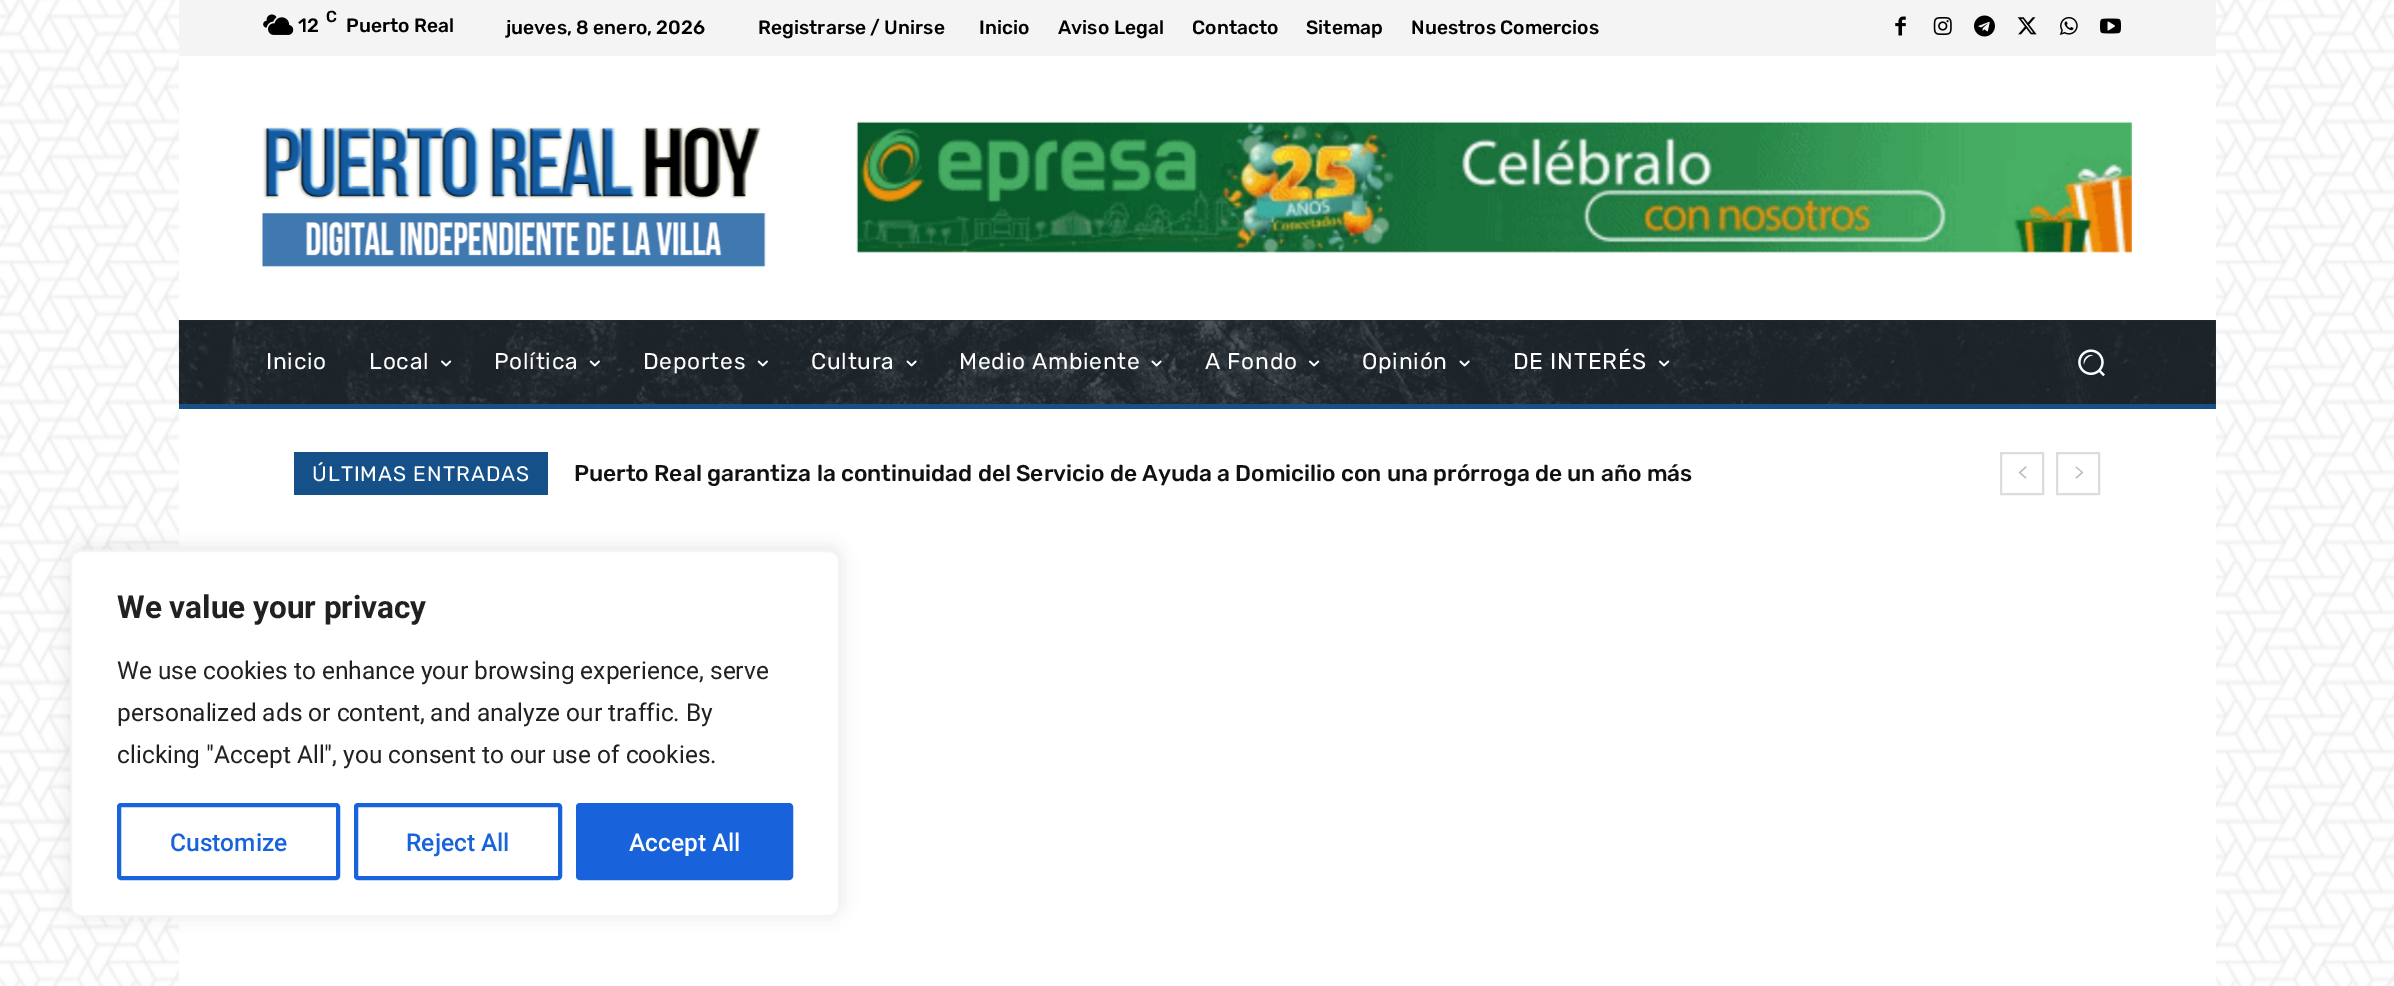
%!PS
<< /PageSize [2394 986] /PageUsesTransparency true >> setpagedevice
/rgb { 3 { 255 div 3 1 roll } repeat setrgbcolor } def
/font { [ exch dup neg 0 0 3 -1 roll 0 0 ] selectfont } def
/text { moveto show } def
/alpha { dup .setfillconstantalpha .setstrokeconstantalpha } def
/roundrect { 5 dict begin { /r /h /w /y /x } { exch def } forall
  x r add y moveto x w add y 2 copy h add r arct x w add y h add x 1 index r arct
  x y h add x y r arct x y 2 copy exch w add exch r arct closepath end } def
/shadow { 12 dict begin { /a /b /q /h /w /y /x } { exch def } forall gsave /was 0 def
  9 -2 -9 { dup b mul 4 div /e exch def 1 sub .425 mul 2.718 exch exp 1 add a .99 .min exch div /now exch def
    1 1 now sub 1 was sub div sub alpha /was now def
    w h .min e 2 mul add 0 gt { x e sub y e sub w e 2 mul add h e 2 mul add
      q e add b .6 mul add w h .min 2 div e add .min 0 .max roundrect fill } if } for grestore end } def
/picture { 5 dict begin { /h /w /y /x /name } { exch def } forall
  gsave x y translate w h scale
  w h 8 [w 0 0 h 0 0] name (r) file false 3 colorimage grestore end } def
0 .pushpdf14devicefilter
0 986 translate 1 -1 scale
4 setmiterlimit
255 255 255 rgb
0 0 2394 986 rectfill
(img_01.rgb) 0 0 2394 986 picture
244 244 244 rgb
179 0 2037 56 rectfill
(img_02.rgb) 263 14 31 21 picture
(img_03.rgb) 1895 16 11 20 picture
(img_04.rgb) 1933 17 19 18 picture
(img_05.rgb) 1974 15 21 22 picture
(img_06.rgb) 2017 17 20 18 picture
(img_07.rgb) 2059 16 19 19 picture
(img_08.rgb) 2100 18 21 16 picture
255 255 255 rgb
179 56 2037 930 rectfill
(img_09.rgb) 262 126 504 141 picture
(img_10.rgb) 856 121 1276 132 picture
35 45 53 rgb
179 320 2037 84 rectfill
(img_11.rgb) 178 320 2037 84 picture
(img_12.rgb) 441 360 11 7 picture
(img_13.rgb) 589 360 11 7 picture
(img_14.rgb) 757 360 11 7 picture
(img_15.rgb) 906 360 11 7 picture
(img_16.rgb) 1151 360 11 7 picture
(img_17.rgb) 1309 360 11 7 picture
(img_18.rgb) 1459 360 11 7 picture
(img_19.rgb) 1659 360 11 7 picture
(img_20.rgb) 2078 349 27 28 picture
21 80 136 rgb
179 404 2037 5 rectfill
294 452 254 43 rectfill
220 220 220 rgb
2 setlinewidth
2001 453 42 41 rectstroke
(img_21.rgb) 2018 466 9 13 picture
2057 453 42 41 rectstroke
(img_22.rgb) 2075 466 9 13 picture
172 171 171 rgb
70 548 770 367 11 9 0.3 shadow
255 255 255 rgb
71 551 768 365 10 roundrect gsave fill grestore
244 244 244 rgb
stroke
24 99 220 rgb
4 setlinewidth
119 805 219 73 2 roundrect stroke
356 805 204 73 2 roundrect stroke
578 805 213 73 2 roundrect gsave fill grestore
stroke
/Rubik-Medium 16 font
0 0 0 rgb
(C) 326 22 text
/Rubik-Medium 19.25 font
(12) 298 32 text
(Puerto Real) 346 32 text
(jueves, 8 enero, 2026) 506 34 text
(Registrarse / Unirse) 758 34 text
(Inicio) 979 34 text
(Aviso Legal) 1058 34 text
(Contacto) 1192 34 text
(Sitemap) 1306 34 text
(Nuestros Comercios) 1411 34 text
/Rubik-Regular 22.75 font
255 255 255 rgb
266 369 moveto 0.75 0 (Inicio) ashow
369 369 moveto 0.75 0 (Local) ashow
494 369 moveto 0.75 0 (Política) ashow
643 369 moveto 0.75 0 (Deportes) ashow
811 369 moveto 0.75 0 (Cultura) ashow
959 369 moveto 0.75 0 (Medio Ambiente) ashow
1205 369 moveto 0.75 0 (A Fondo) ashow
1362 369 moveto 0.75 0 (Opinión) ashow
1513 369 moveto 0.75 0 (DE INTERÉS) ashow
/Rubik-Regular 21 font
312 481 moveto 1 0 (ÚLTIMAS ENTRADAS) ashow
/Rubik-Medium 22.75 font
17 17 17 rgb
(Puerto Real garantiza la continuidad del Servicio de Ayuda a Domicilio con una prórroga de un año más) 574 481 text
/Roboto-Bold 31.5 font
33 33 33 rgb
(We value your privacy) 117 618 text
/Roboto-Regular 24.5 font
(We use cookies to enhance your browsing experience, serve) 117 679 text
(personalized ads or content, and analyze our traffic. By) 117 721 text
(clicking "Accept All", you consent to our use of cookies.) 117 763 text
/Roboto-Medium 24.5 font
24 99 220 rgb
(Customize) 170 851 text
(Reject All) 406 851 text
255 255 255 rgb
(Accept All) 629 851 text
.poppdf14devicefilter showpage
